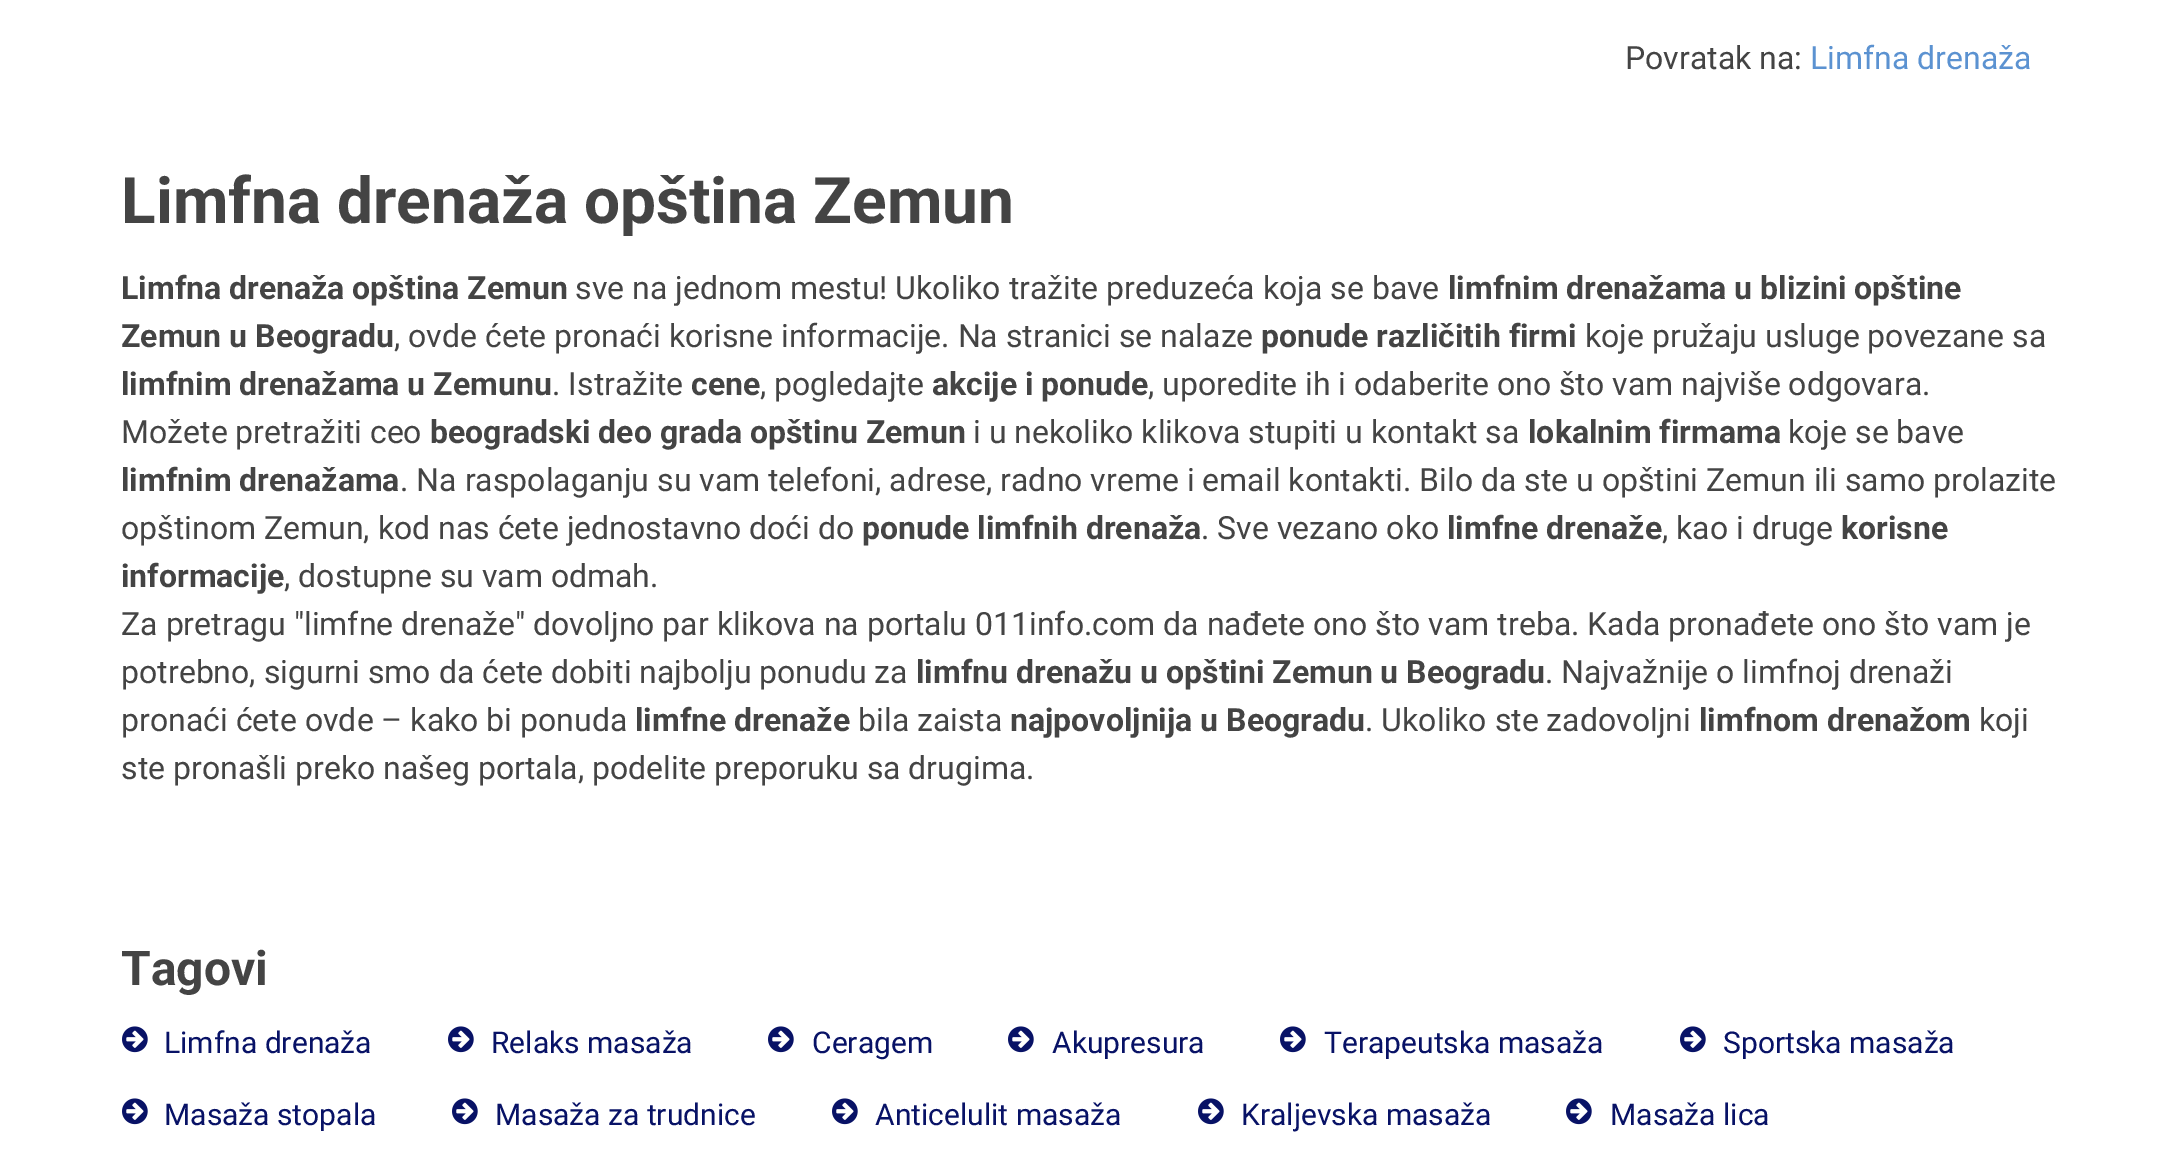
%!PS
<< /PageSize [2181 1155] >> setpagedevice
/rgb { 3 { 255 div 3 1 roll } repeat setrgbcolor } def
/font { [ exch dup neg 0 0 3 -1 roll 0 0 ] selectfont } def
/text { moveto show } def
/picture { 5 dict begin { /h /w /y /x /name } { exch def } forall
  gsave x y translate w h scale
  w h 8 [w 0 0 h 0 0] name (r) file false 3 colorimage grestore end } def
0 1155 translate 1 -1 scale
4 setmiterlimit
255 255 255 rgb
0 0 2181 1155 rectfill
(img_01.rgb) 122 1026 26 27 picture
(img_01.rgb) 448 1026 26 27 picture
(img_01.rgb) 768 1026 26 27 picture
(img_01.rgb) 1008 1026 26 27 picture
(img_01.rgb) 1280 1026 26 27 picture
(img_01.rgb) 1680 1026 26 27 picture
(img_01.rgb) 122 1098 26 27 picture
(img_01.rgb) 452 1098 26 27 picture
(img_01.rgb) 832 1098 26 27 picture
(img_01.rgb) 1198 1098 26 27 picture
(img_01.rgb) 1566 1098 26 27 picture
/Roboto-Regular 32 font
68 68 68 rgb
(Povratak na:) 1625 69 text
91 146 209 rgb
(Limfna drenaža) 1810 69 text
/Roboto-Bold 64 font
68 68 68 rgb
(Limfna drenaža opština Zemun) 121 223 text
/Roboto-Bold 32 font
(Limfna drenaža opština Zemun) 121 299 text
/Roboto-Regular 32 font
(sve na jednom mestu! Ukoliko tražite preduzeća koja se bave) 575 299 text
/Roboto-Bold 32 font
(limfnim drenažama u blizini opštine) 1448 299 text
(Zemun u Beogradu) 121 347 text
/Roboto-Regular 32 font
(, ovde ćete pronaći korisne informacije. Na stranici se nalaze) 394 347 text
/Roboto-Bold 32 font
(ponude različitih firmi) 1261 347 text
/Roboto-Regular 32 font
(koje pružaju usluge povezane sa) 1585 347 text
/Roboto-Bold 32 font
(limfnim drenažama u Zemunu) 121 395 text
/Roboto-Regular 32 font
(. Istražite) 552 395 text
/Roboto-Bold 32 font
(cene) 691 395 text
/Roboto-Regular 32 font
(, pogledajte) 760 395 text
/Roboto-Bold 32 font
(akcije i ponude) 932 395 text
/Roboto-Regular 32 font
(, uporedite ih i odaberite ono što vam najviše odgovara.) 1148 395 text
(Možete pretražiti ceo) 121 443 text
/Roboto-Bold 32 font
(beogradski deo grada opštinu Zemun) 430 443 text
/Roboto-Regular 32 font
(i u nekoliko klikova stupiti u kontakt sa) 973 443 text
/Roboto-Bold 32 font
(lokalnim firmama) 1528 443 text
/Roboto-Regular 32 font
(koje se bave) 1788 443 text
/Roboto-Bold 32 font
(limfnim drenažama) 121 491 text
/Roboto-Regular 32 font
(. Na raspolaganju su vam telefoni, adrese, radno vreme i email kontakti. Bilo da ste u opštini Zemun ili samo prolazite) 400 491 text
(opštinom Zemun, kod nas ćete jednostavno doći do) 121 539 text
/Roboto-Bold 32 font
(ponude limfnih drenaža) 862 539 text
/Roboto-Regular 32 font
(. Sve vezano oko) 1201 539 text
/Roboto-Bold 32 font
(limfne drenaže) 1447 539 text
/Roboto-Regular 32 font
(, kao i druge) 1662 539 text
/Roboto-Bold 32 font
(korisne) 1841 539 text
(informacije) 121 587 text
/Roboto-Regular 32 font
(, dostupne su vam odmah.) 284 587 text
(Za pretragu "limfne drenaže" dovoljno par klikova na portalu 011info.com da nađete ono što vam treba. Kada pronađete ono što vam je) 121 635 text
(potrebno, sigurni smo da ćete dobiti najbolju ponudu za) 121 683 text
/Roboto-Bold 32 font
(limfnu drenažu u opštini Zemun u Beogradu) 916 683 text
/Roboto-Regular 32 font
(. Najvažnije o limfnoj drenaži) 1545 683 text
(pronaći ćete ovde – kako bi ponuda) 121 731 text
/Roboto-Bold 32 font
(limfne drenaže) 635 731 text
/Roboto-Regular 32 font
(bila zaista) 858 731 text
/Roboto-Bold 32 font
(najpovoljnija u Beogradu) 1010 731 text
/Roboto-Regular 32 font
(. Ukoliko ste zadovoljni) 1365 731 text
/Roboto-Bold 32 font
(limfnom drenažom) 1699 731 text
/Roboto-Regular 32 font
(koji) 1979 731 text
(ste pronašli preko našeg portala, podelite preporuku sa drugima.) 121 779 text
/Roboto-Bold 48 font
(Tagovi) 121 985 text
/Roboto-Regular 30 font
8 18 102 rgb
(Limfna drenaža) 164 1053 text
(Relaks masaža) 491 1053 text
(Ceragem) 812 1053 text
(Akupresura) 1052 1053 text
(Terapeutska masaža) 1324 1053 text
(Sportska masaža) 1723 1053 text
(Masaža stopala) 164 1125 text
(Masaža za trudnice) 495 1125 text
(Anticelulit masaža) 875 1125 text
(Kraljevska masaža) 1241 1125 text
(Masaža lica) 1610 1125 text
showpage
